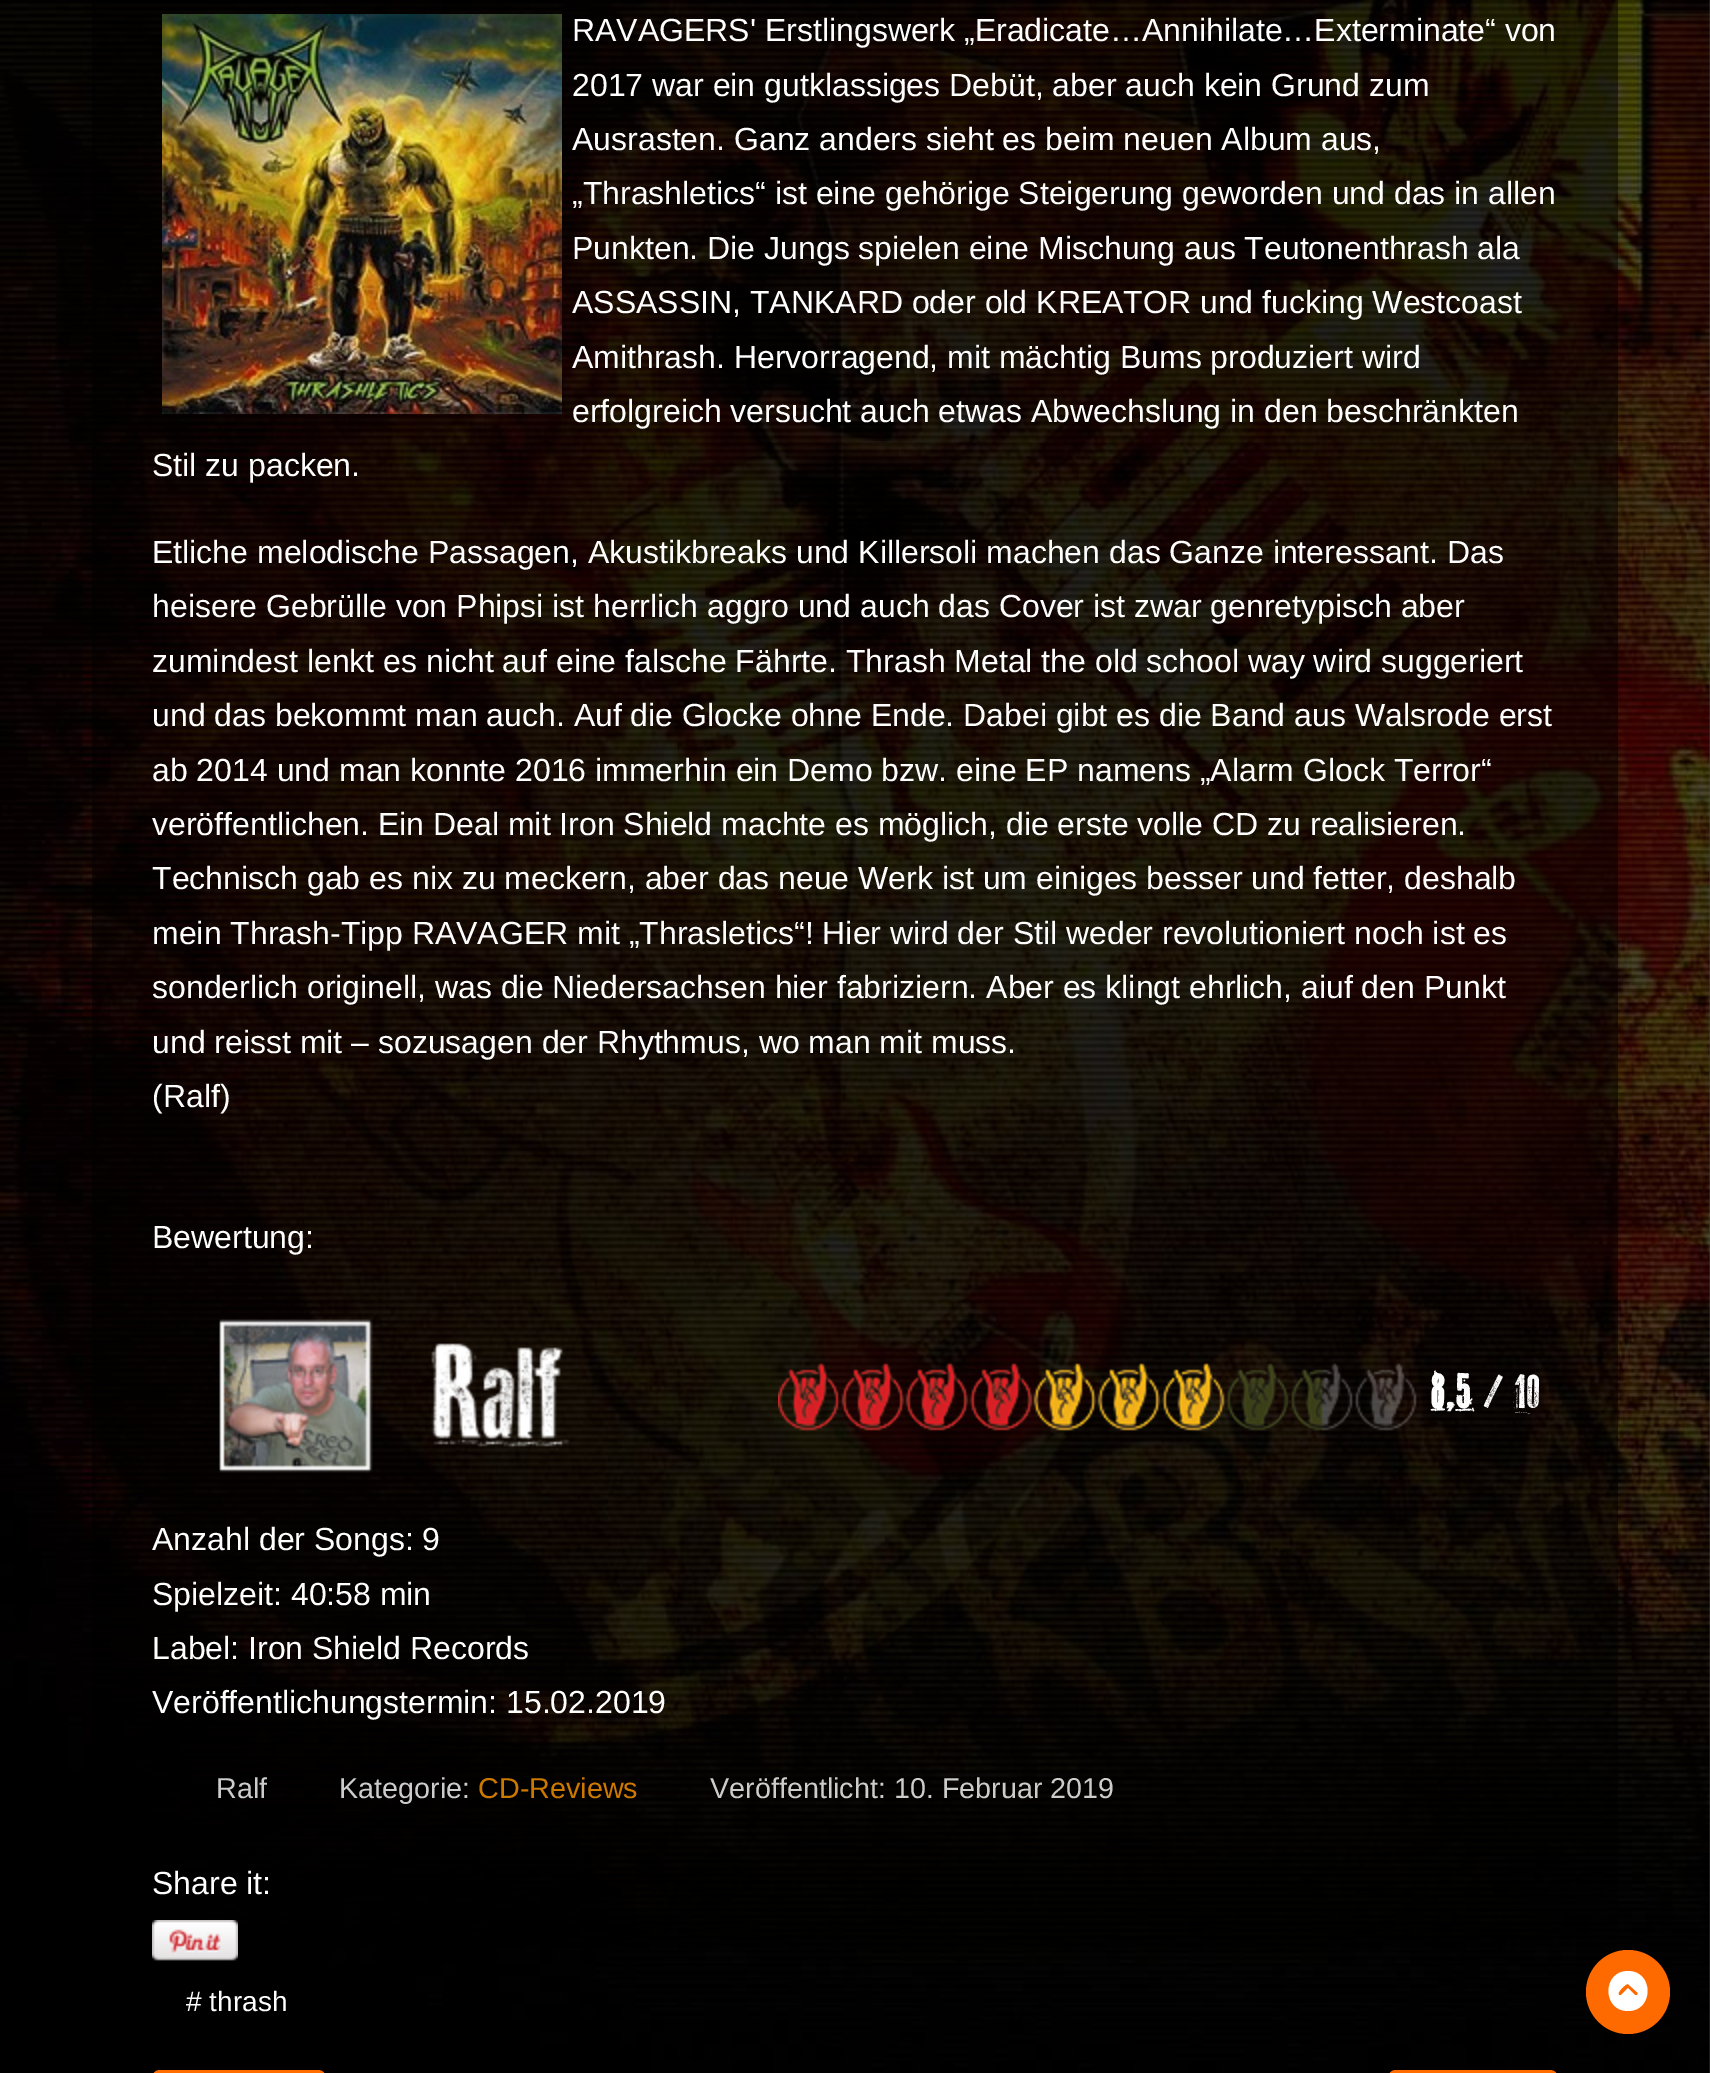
%!PS
<< /PageSize [1710 2073] /PageUsesTransparency true >> setpagedevice
/rgb { 3 { 255 div 3 1 roll } repeat setrgbcolor } def
/font { [ exch dup neg 0 0 3 -1 roll 0 0 ] selectfont } def
/text { moveto show } def
/alpha { dup .setfillconstantalpha .setstrokeconstantalpha } def
/circle { newpath 0 360 arc closepath } def
/roundrect { 5 dict begin { /r /h /w /y /x } { exch def } forall
  x r add y moveto x w add y 2 copy h add r arct x w add y h add x 1 index r arct
  x y h add x y r arct x y 2 copy exch w add exch r arct closepath end } def
/picture { 5 dict begin { /h /w /y /x /name } { exch def } forall
  gsave x y translate w h scale
  w h 8 [w 0 0 h 0 0] name (r) file false 3 colorimage grestore end } def
0 .pushpdf14devicefilter
0 2073 translate 1 -1 scale
4 setmiterlimit
77 77 77 rgb
0 0 1710 2073 rectfill
(img_01.rgb) 0 0 1710 2073 picture
0.5 alpha
0 0 0 rgb
92 0 1526 1949 rectfill
1 alpha
(img_02.rgb) 162 14 400 400 picture
(img_03.rgb) 219 1319 351 154 picture
(img_04.rgb) 778 1363 639 68 picture
(img_05.rgb) 152 1920 86 41 picture
255 108 0 rgb
152 2070 174 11 8 roundrect fill
1388 2070 170 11 8 roundrect fill
255 106 0 rgb
1628 1992 42 circle fill
255 255 255 rgb
1628 2011 moveto 26 0 26 -40 0 -40 rcurveto -26 0 -26 40 0 40 rcurveto closepath 1637 1992 moveto 2 2 0 4 -2 3 rcurveto -7 -7 rlineto -7 7 rlineto -2 0 rlineto -3 -3 8 -12 9 -11 rcurveto closepath fill
/LiberationSans-Regular 32 font
(RAVAGERS' Erstlingswerk „Eradicate…Annihilate…Exterminate“ von) 572 41 text
(2017 war ein gutklassiges Debüt, aber auch kein Grund zum) 572 96 text
(Ausrasten. Ganz anders sieht es beim neuen Album aus,) 572 150 text
(„Thrashletics“ ist eine gehörige Steigerung geworden und das in allen) 572 204 text
(Punkten. Die Jungs spielen eine Mischung aus Teutonenthrash ala) 572 259 text
(ASSASSIN, TANKARD oder old KREATOR und fucking Westcoast) 572 313 text
(Amithrash. Hervorragend, mit mächtig Bums produziert wird) 572 368 text
(erfolgreich versucht auch etwas Abwechslung in den beschränkten) 572 422 text
(Stil zu packen.) 152 476 text
(Etliche melodische Passagen, Akustikbreaks und Killersoli machen das Ganze interessant. Das) 152 563 text
(heisere Gebrülle von Phipsi ist herrlich aggro und auch das Cover ist zwar genretypisch aber) 152 617 text
(zumindest lenkt es nicht auf eine falsche Fährte. Thrash Metal the old school way wird suggeriert) 152 672 text
(und das bekommt man auch. Auf die Glocke ohne Ende. Dabei gibt es die Band aus Walsrode erst) 152 726 text
(ab 2014 und man konnte 2016 immerhin ein Demo bzw. eine EP namens „Alarm Glock Terror“) 152 781 text
(veröffentlichen. Ein Deal mit Iron Shield machte es möglich, die erste volle CD zu realisieren.) 152 835 text
(Technisch gab es nix zu meckern, aber das neue Werk ist um einiges besser und fetter, deshalb) 152 889 text
(mein Thrash-Tipp RAVAGER mit „Thrasletics“! Hier wird der Stil weder revolutioniert noch ist es) 152 944 text
(sonderlich originell, was die Niedersachsen hier fabriziern. Aber es klingt ehrlich, aiuf den Punkt) 152 998 text
(und reisst mit – sozusagen der Rhythmus, wo man mit muss.) 152 1053 text
(\(Ralf\)) 152 1107 text
(Bewertung:) 152 1248 text
/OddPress-Bold 48 font
(8,5) 1430 1408 text
/OddPress-Regular 48 font
(/ 10) 1483 1408 text
/LiberationSans-Regular 32 font
(Anzahl der Songs: 9) 152 1550 text
(Spielzeit: 40:58 min) 152 1605 text
(Label: Iron Shield Records) 152 1659 text
(Veröffentlichungstermin: 15.02.2019) 152 1713 text
/LiberationSans-Regular 28.75 font
204 204 204 rgb
(Ralf) 216 1798 text
(Kategorie:) 339 1798 text
205 121 0 rgb
(CD-Reviews) 478 1798 text
204 204 204 rgb
(Veröffentlicht: 10. Februar 2019) 710 1798 text
/LiberationSans-Regular 32 font
255 255 255 rgb
(Share it:) 152 1894 text
/LiberationSans-Regular 28 font
(# thrash) 186 2011 text
.poppdf14devicefilter showpage
